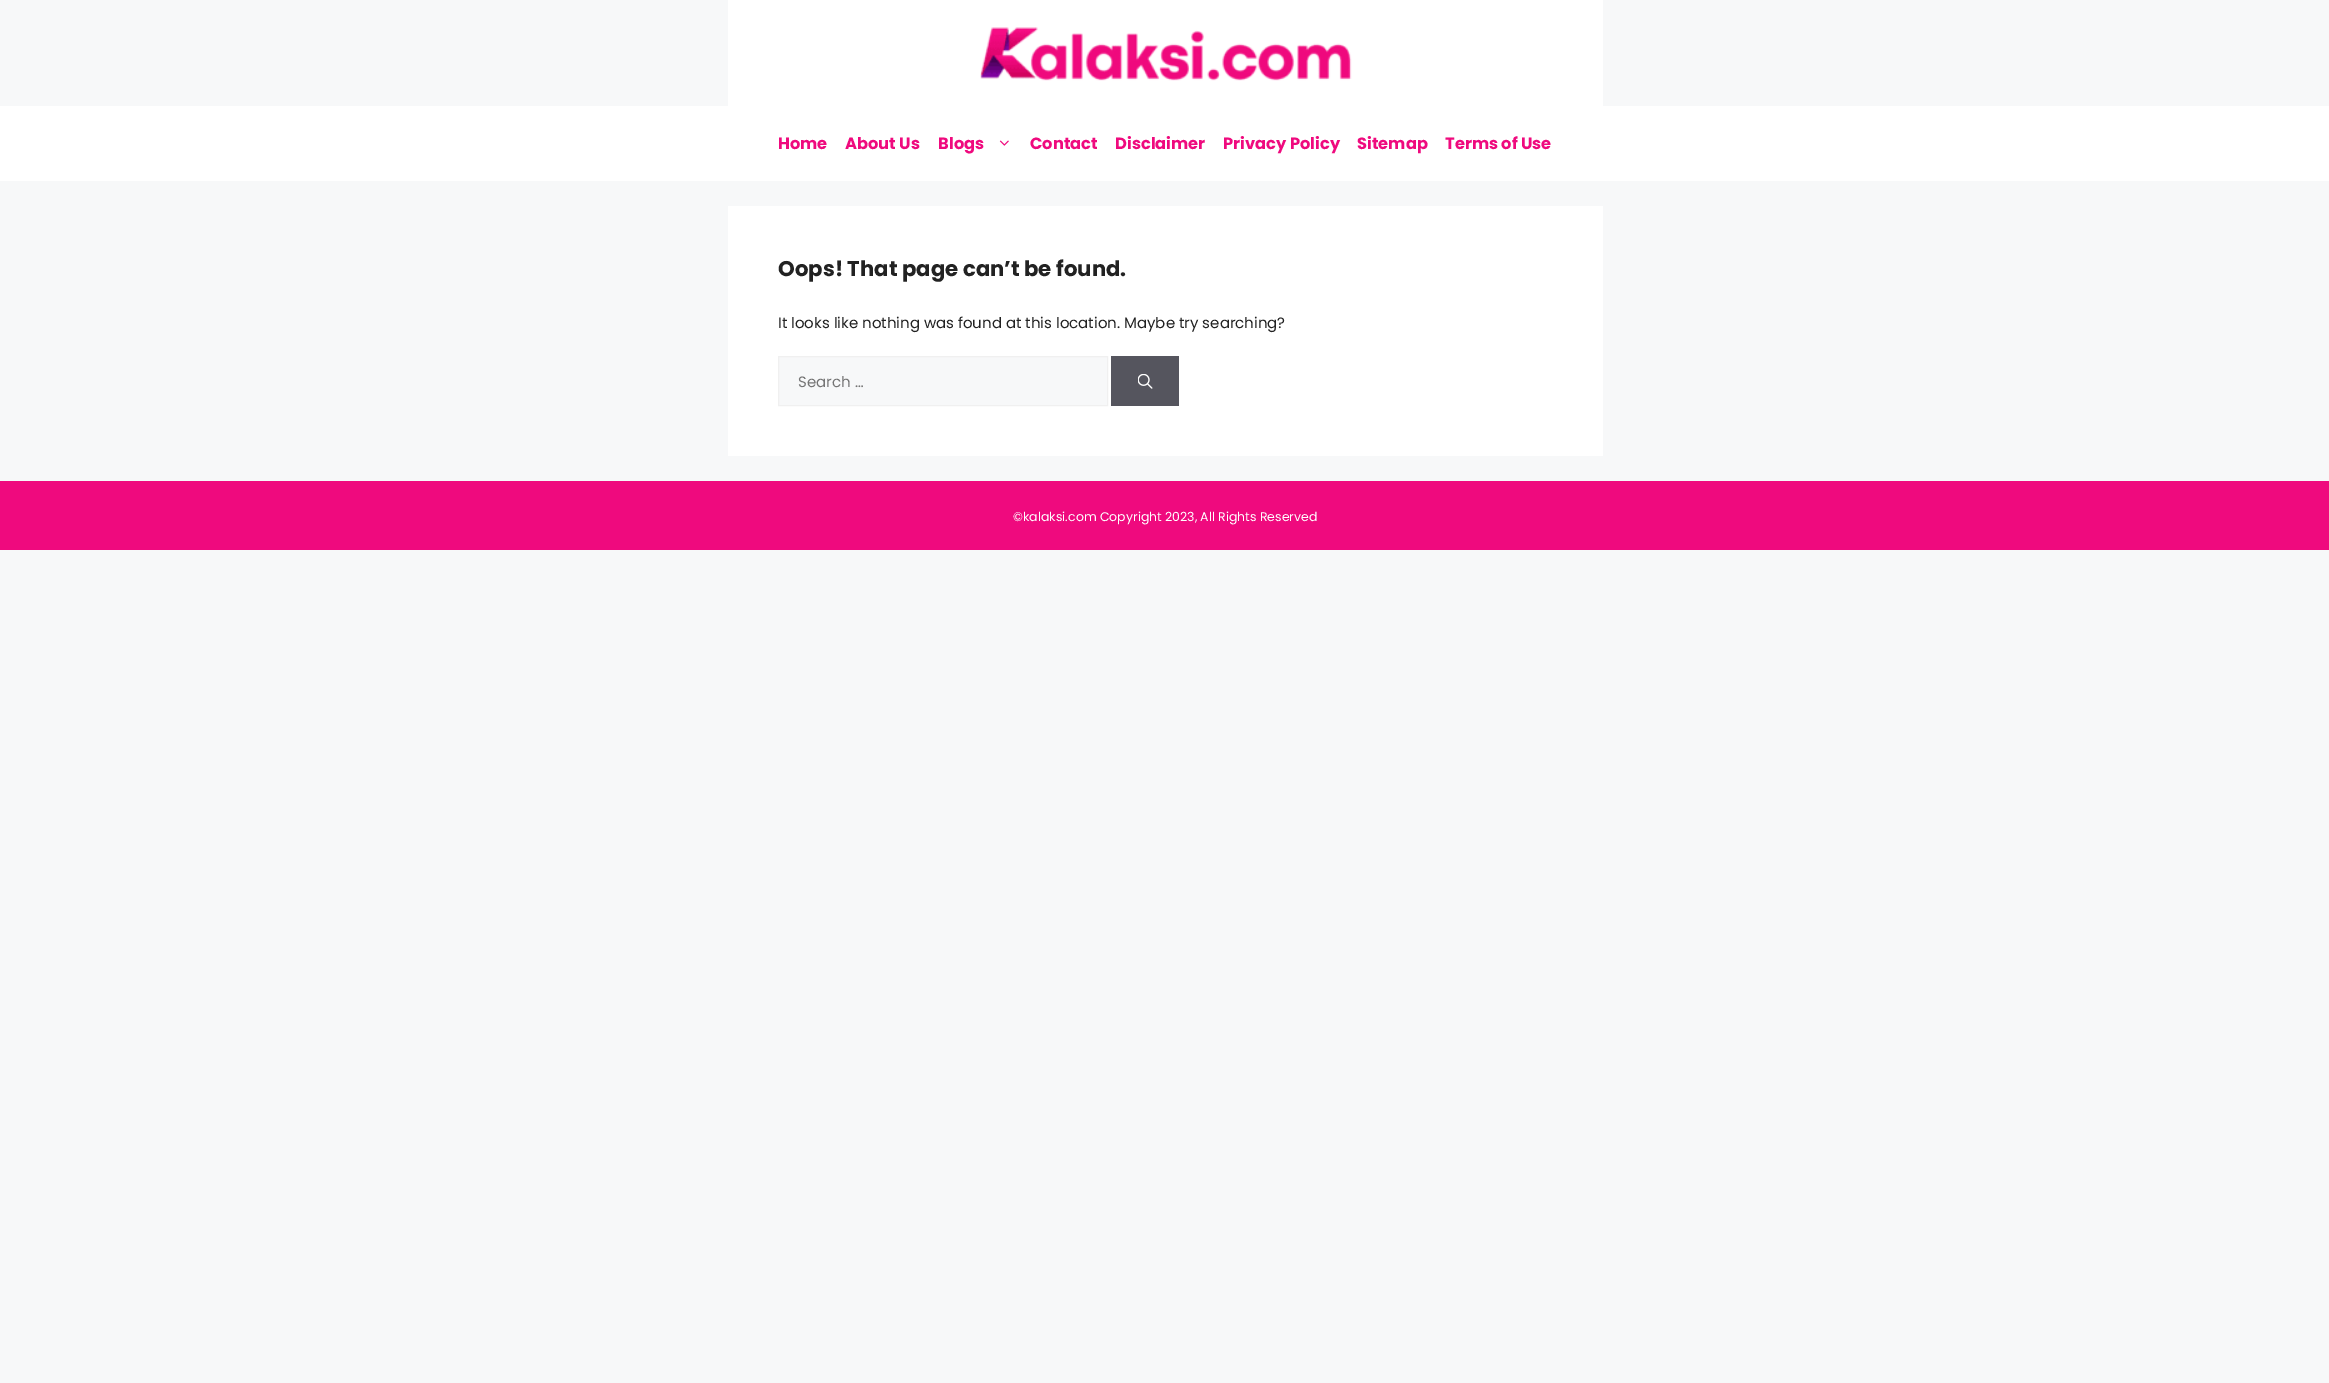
%!PS
<< /PageSize [2329 1383] >> setpagedevice
/rgb { 3 { 255 div 3 1 roll } repeat setrgbcolor } def
/font { [ exch dup neg 0 0 3 -1 roll 0 0 ] selectfont } def
/text { moveto show } def
/picture { 5 dict begin { /h /w /y /x /name } { exch def } forall
  gsave x y translate w h scale
  w h 8 [w 0 0 h 0 0] name (r) file false 3 colorimage grestore end } def
0 1383 translate 1 -1 scale
4 setmiterlimit
247 248 249 rgb
0 0 2329 1383 rectfill
255 255 255 rgb
728 0 875 106 rectfill
(img_01.rgb) 980 27 372 54 picture
0 106 2329 75 rectfill
(img_02.rgb) 999 140 10 6 picture
728 206 875 250 rectfill
247 248 249 rgb
778.5 356.5 moveto 329 0 rlineto 0 49 rlineto -329 0 rlineto closepath gsave fill grestore
240 240 240 rgb
stroke
85 85 94 rgb
1111 356 68 50 rectfill
(img_03.rgb) 1138 374 15 15 picture
239 10 126 rgb
0 481 2329 69 rectfill
/Poppins-Bold 16.25 font
(Home) 778 149 text
(About Us) 845 149 text
(Blogs) 938 149 text
(Contact) 1030 149 text
(Disclaimer) 1115 149 text
(Privacy Policy) 1223 149 text
(Sitemap) 1357 149 text
(Terms of Use) 1445 149 text
/Poppins-Bold 21.25 font
34 34 34 rgb
(Oops! That page can’t be found.) 778 276 text
/Poppins-Regular 15 font
(It looks like nothing was found at this location. Maybe try searching?) 778 328 text
117 117 117 rgb
(Search …) 798 387 text
/Poppins-Regular 12.5 font
255 255 255 rgb
(©kalaksi.com Copyright 2023, All Rights Reserved) 1013 521 text
showpage
